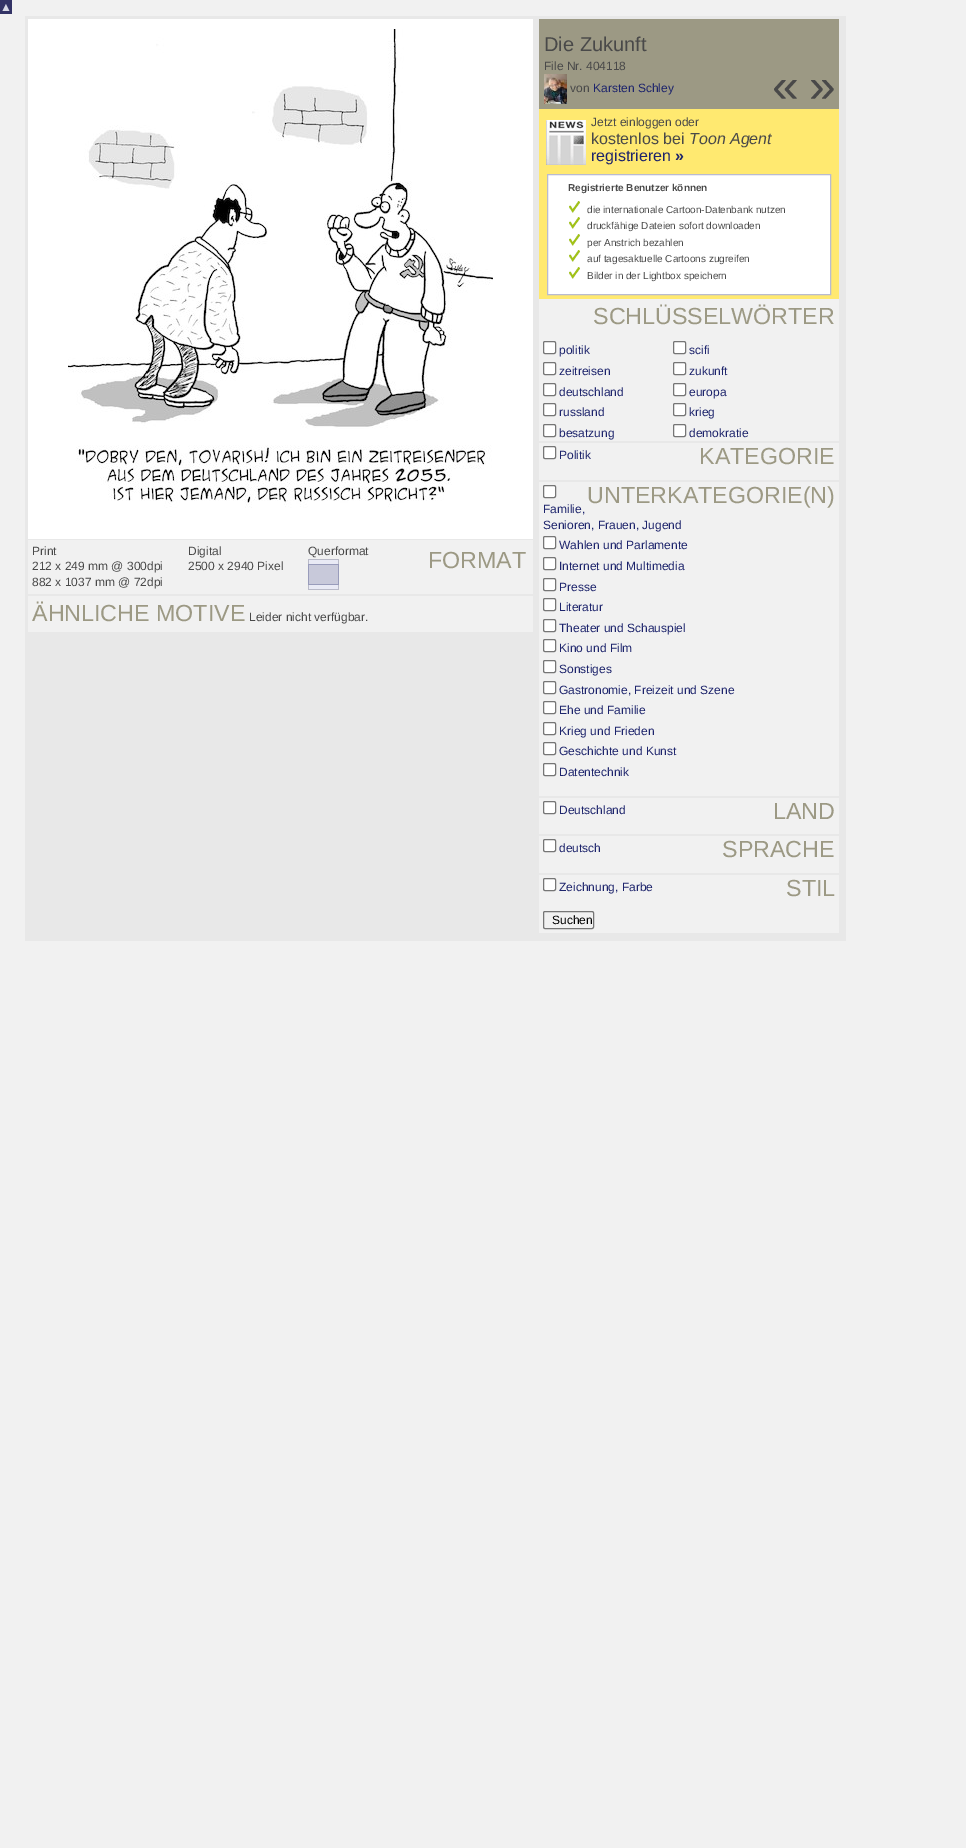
%!PS
<< /PageSize [966 1848] >> setpagedevice
/rgb { 3 { 255 div 3 1 roll } repeat setrgbcolor } def
/font { [ exch dup neg 0 0 3 -1 roll 0 0 ] selectfont } def
/text { moveto show } def
/roundrect { 5 dict begin { /r /h /w /y /x } { exch def } forall
  x r add y moveto x w add y 2 copy h add r arct x w add y h add x 1 index r arct
  x y h add x y r arct x y 2 copy exch w add exch r arct closepath end } def
/picture { 5 dict begin { /h /w /y /x /name } { exch def } forall
  gsave x y translate w h scale
  w h 8 [w 0 0 h 0 0] name (r) file false 3 colorimage grestore end } def
0 1848 translate 1 -1 scale
4 setmiterlimit
241 241 241 rgb
0 0 966 1848 rectfill
51 51 102 rgb
0 0 12 14 rectfill
232 232 232 rgb
25 16 821 925 rectfill
255 255 255 rgb
28 19 505 520 rectfill
(img_01.rgb) 68 29 425 479 picture
241 241 241 rgb
28 540 505 54 rectfill
(img_02.rgb) 308 559 31 31 picture
28 596 505 36 rectfill
156 153 132 rgb
539 19 300 90 rectfill
(img_03.rgb) 544 74 23 30 picture
255 233 112 rgb
539 109 300 190 rectfill
(img_04.rgb) 546 120 40 45 picture
255 255 255 rgb
547.5 174.5 moveto 283 0 rlineto 0 120 rlineto -283 0 rlineto closepath gsave fill grestore
185 187 208 rgb
stroke
(img_05.rgb) 569 201 11 12 picture
(img_05.rgb) 569 217 11 12 picture
(img_05.rgb) 569 234 11 12 picture
(img_05.rgb) 569 250 11 12 picture
(img_05.rgb) 569 267 11 12 picture
241 241 241 rgb
539 299 300 634 rectfill
255 255 255 rgb
543.5 341.5 12 12 1.5 roundrect gsave fill grestore
118 118 118 rgb
stroke
255 255 255 rgb
673.5 341.5 12 12 1.5 roundrect gsave fill grestore
118 118 118 rgb
stroke
255 255 255 rgb
543.5 362.5 12 12 1.5 roundrect gsave fill grestore
118 118 118 rgb
stroke
255 255 255 rgb
673.5 362.5 12 12 1.5 roundrect gsave fill grestore
118 118 118 rgb
stroke
255 255 255 rgb
543.5 383.5 12 12 1.5 roundrect gsave fill grestore
118 118 118 rgb
stroke
255 255 255 rgb
673.5 383.5 12 12 1.5 roundrect gsave fill grestore
118 118 118 rgb
stroke
255 255 255 rgb
543.5 403.5 12 12 1.5 roundrect gsave fill grestore
118 118 118 rgb
stroke
255 255 255 rgb
673.5 403.5 12 12 1.5 roundrect gsave fill grestore
118 118 118 rgb
stroke
255 255 255 rgb
543.5 424.5 12 12 1.5 roundrect gsave fill grestore
118 118 118 rgb
stroke
255 255 255 rgb
673.5 424.5 12 12 1.5 roundrect gsave fill grestore
118 118 118 rgb
stroke
232 232 232 rgb
539 441 300 2 rectfill
255 255 255 rgb
543.5 446.5 12 12 1.5 roundrect gsave fill grestore
118 118 118 rgb
stroke
232 232 232 rgb
539 480 300 2 rectfill
255 255 255 rgb
543.5 485.5 12 12 1.5 roundrect gsave fill grestore
118 118 118 rgb
stroke
255 255 255 rgb
543.5 536.5 12 12 1.5 roundrect gsave fill grestore
118 118 118 rgb
stroke
255 255 255 rgb
543.5 557.5 12 12 1.5 roundrect gsave fill grestore
118 118 118 rgb
stroke
255 255 255 rgb
543.5 578.5 12 12 1.5 roundrect gsave fill grestore
118 118 118 rgb
stroke
255 255 255 rgb
543.5 598.5 12 12 1.5 roundrect gsave fill grestore
118 118 118 rgb
stroke
255 255 255 rgb
543.5 619.5 12 12 1.5 roundrect gsave fill grestore
118 118 118 rgb
stroke
255 255 255 rgb
543.5 639.5 12 12 1.5 roundrect gsave fill grestore
118 118 118 rgb
stroke
255 255 255 rgb
543.5 660.5 12 12 1.5 roundrect gsave fill grestore
118 118 118 rgb
stroke
255 255 255 rgb
543.5 681.5 12 12 1.5 roundrect gsave fill grestore
118 118 118 rgb
stroke
255 255 255 rgb
543.5 701.5 12 12 1.5 roundrect gsave fill grestore
118 118 118 rgb
stroke
255 255 255 rgb
543.5 722.5 12 12 1.5 roundrect gsave fill grestore
118 118 118 rgb
stroke
255 255 255 rgb
543.5 742.5 12 12 1.5 roundrect gsave fill grestore
118 118 118 rgb
stroke
255 255 255 rgb
543.5 763.5 12 12 1.5 roundrect gsave fill grestore
118 118 118 rgb
stroke
232 232 232 rgb
539 796 300 2 rectfill
255 255 255 rgb
543.5 801.5 12 12 1.5 roundrect gsave fill grestore
118 118 118 rgb
stroke
232 232 232 rgb
539 834 300 2 rectfill
255 255 255 rgb
543.5 839.5 12 12 1.5 roundrect gsave fill grestore
118 118 118 rgb
stroke
232 232 232 rgb
539 873 300 2 rectfill
255 255 255 rgb
543.5 878.5 12 12 1.5 roundrect gsave fill grestore
118 118 118 rgb
stroke
543.5 911.5 50 17 1.5 roundrect stroke
/LiberationSans-Regular 12 font
216 217 229 rgb
(▲) 0 11 text
73 73 73 rgb
(Print) 32 555 text
(212 x 249 mm @ 300dpi) 32 570 text
(882 x 1037 mm @ 72dpi) 32 586 text
(Digital) 188 555 text
(2500 x 2940 Pixel) 188 570 text
(Querformat) 308 555 text
/LiberationSans-Regular 23.25 font
156 153 132 rgb
(FORMAT) 428 568 text
(ÄHNLICHE MOTIVE) 32 621 text
/LiberationSans-Regular 12 font
73 73 73 rgb
(Leider nicht verfügbar.) 249 621 text
/LiberationSans-Regular 20 font
(Die Zukunft) 544 51 text
/LiberationSans-Regular 12 font
(File Nr. 404118) 544 70 text
(von) 570 92 text
29 36 108 rgb
(Karsten Schley) 593 92 text
/LiberationSans-Regular 48 font
73 73 73 rgb
(«) 772 102 text
(») 809 102 text
/LiberationSans-Regular 12 font
(Jetzt einloggen oder) 591 126 text
/LiberationSans-Regular 16 font
(kostenlos bei) 591 144 text
/LiberationSans-Italic 16 font
(Toon Agent) 689 144 text
/LiberationSans-Regular 16 font
29 36 108 rgb
(registrieren) 591 161 text
/LiberationSans-Bold 16 font
(») 675 161 text
/LiberationSans-Bold 10 font
73 73 73 rgb
(Registrierte Benutzer können) 568 191 text
/LiberationSans-Regular 10 font
(die internationale Cartoon-Datenbank nutzen) 587 213 text
(druckfähige Dateien sofort downloaden) 587 229 text
(per Anstrich bezahlen) 587 246 text
(auf tagesaktuelle Cartoons zugreifen) 587 262 text
(Bilder in der Lightbox speichern) 587 279 text
/LiberationSans-Regular 23.25 font
156 153 132 rgb
(SCHLÜSSELWÖRTER) 593 324 text
/LiberationSans-Regular 12 font
29 36 108 rgb
(politik) 559 354 text
(scifi) 689 354 text
(zeitreisen) 559 375 text
(zukunft) 689 375 text
(deutschland) 559 396 text
(europa) 689 396 text
(russland) 559 416 text
(krieg) 689 416 text
(besatzung) 559 437 text
(demokratie) 689 437 text
(Politik) 559 459 text
/LiberationSans-Regular 23.25 font
156 153 132 rgb
(KATEGORIE) 699 464 text
(UNTERKATEGORIE\(N\)) 587 503 text
/LiberationSans-Regular 12 font
29 36 108 rgb
(Familie,) 543 513 text
(Senioren, Frauen, Jugend) 543 529 text
(Wahlen und Parlamente) 559 549 text
(Internet und Multimedia) 559 570 text
(Presse) 559 591 text
(Literatur) 559 611 text
(Theater und Schauspiel) 559 632 text
(Kino und Film) 559 652 text
(Sonstiges) 559 673 text
(Gastronomie, Freizeit und Szene) 559 694 text
(Ehe und Familie) 559 714 text
(Krieg und Frieden) 559 735 text
(Geschichte und Kunst) 559 755 text
(Datentechnik) 559 776 text
(Deutschland) 559 814 text
/LiberationSans-Regular 23.25 font
156 153 132 rgb
(LAND) 773 819 text
/LiberationSans-Regular 12 font
29 36 108 rgb
(deutsch) 559 852 text
/LiberationSans-Regular 23.25 font
156 153 132 rgb
(SPRACHE) 722 857 text
/LiberationSans-Regular 12 font
29 36 108 rgb
(Zeichnung, Farbe) 559 891 text
/LiberationSans-Regular 23.25 font
156 153 132 rgb
(STIL) 786 896 text
/LiberationSans-Regular 12 font
0 0 0 rgb
(Suchen) 552 924 text
showpage
